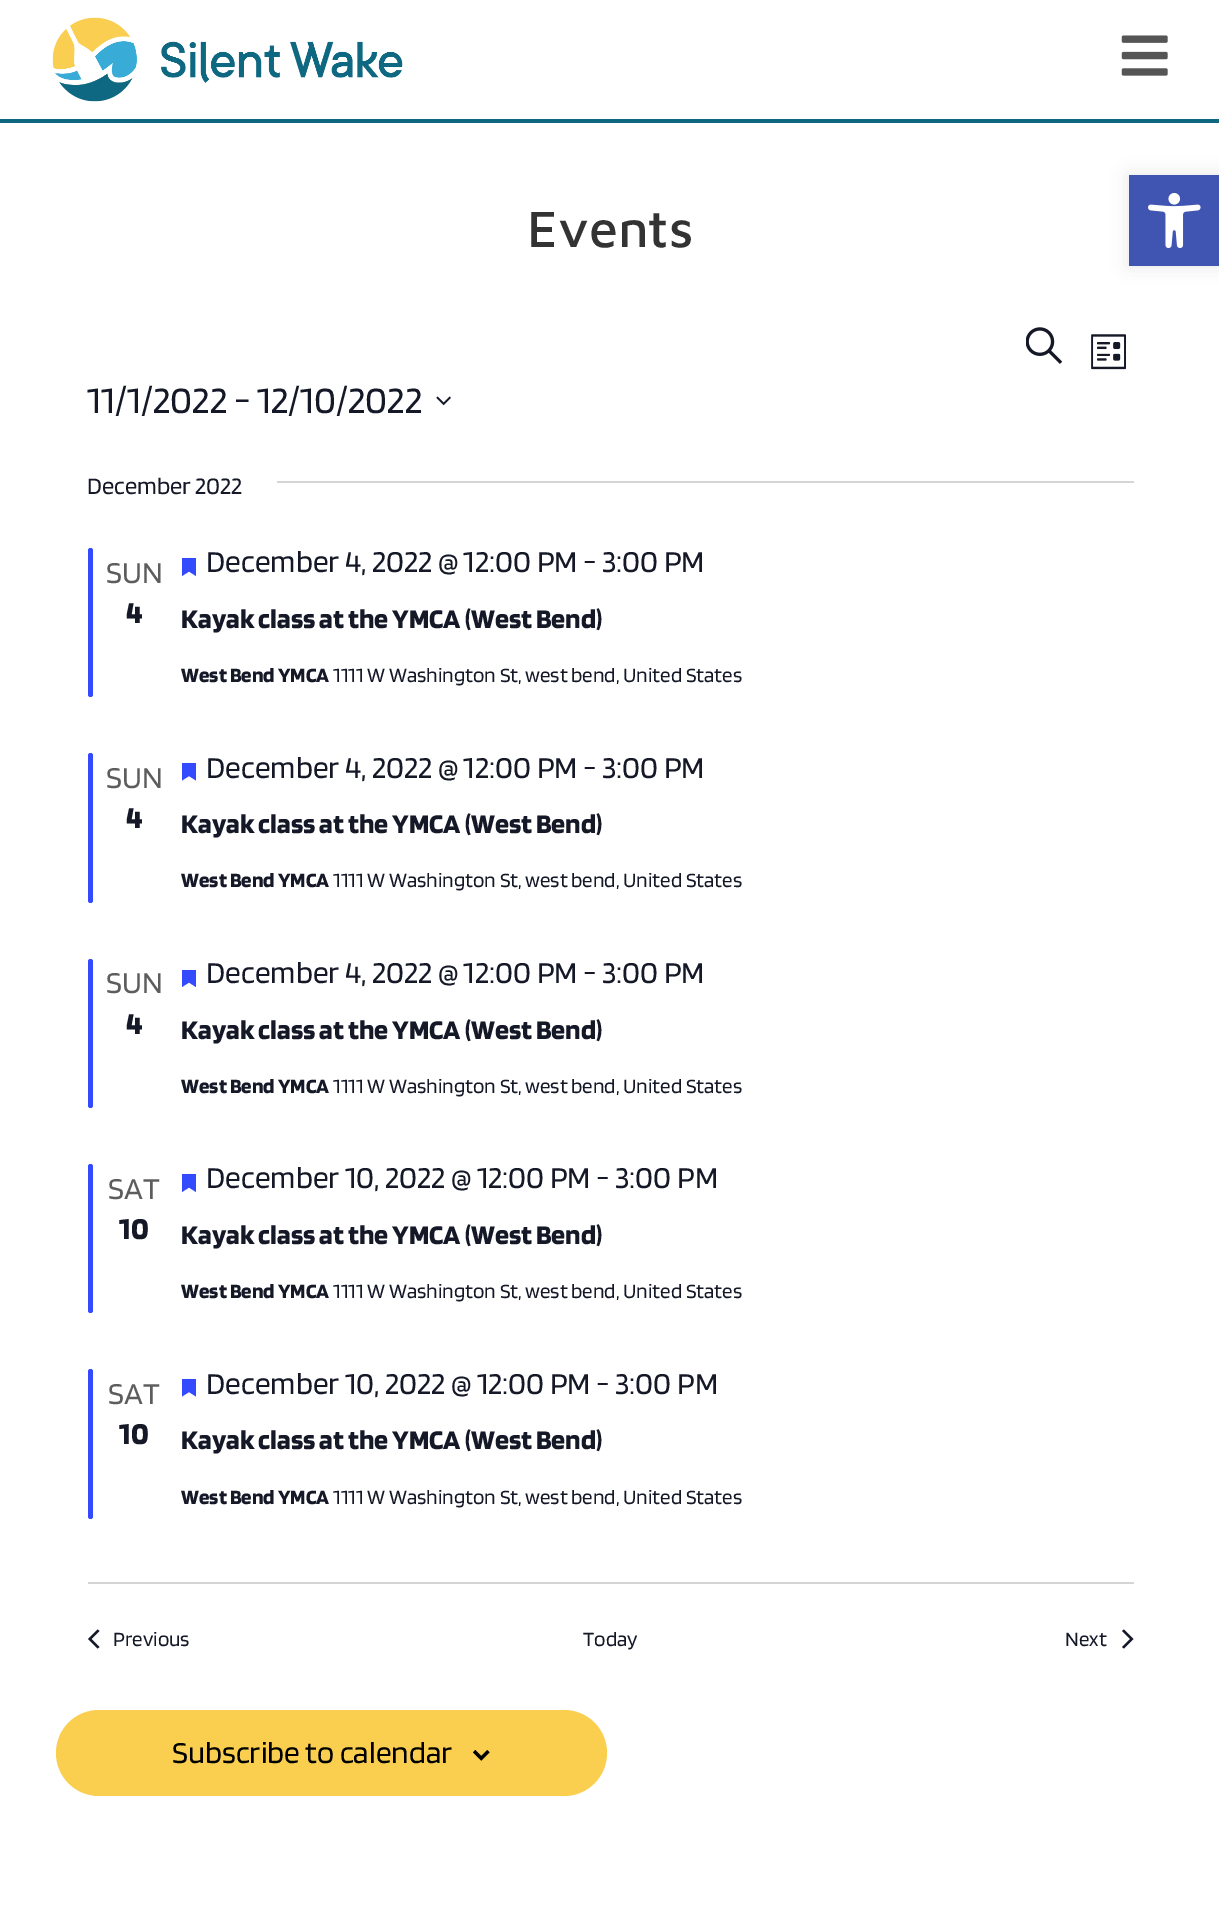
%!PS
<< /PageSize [1219 1929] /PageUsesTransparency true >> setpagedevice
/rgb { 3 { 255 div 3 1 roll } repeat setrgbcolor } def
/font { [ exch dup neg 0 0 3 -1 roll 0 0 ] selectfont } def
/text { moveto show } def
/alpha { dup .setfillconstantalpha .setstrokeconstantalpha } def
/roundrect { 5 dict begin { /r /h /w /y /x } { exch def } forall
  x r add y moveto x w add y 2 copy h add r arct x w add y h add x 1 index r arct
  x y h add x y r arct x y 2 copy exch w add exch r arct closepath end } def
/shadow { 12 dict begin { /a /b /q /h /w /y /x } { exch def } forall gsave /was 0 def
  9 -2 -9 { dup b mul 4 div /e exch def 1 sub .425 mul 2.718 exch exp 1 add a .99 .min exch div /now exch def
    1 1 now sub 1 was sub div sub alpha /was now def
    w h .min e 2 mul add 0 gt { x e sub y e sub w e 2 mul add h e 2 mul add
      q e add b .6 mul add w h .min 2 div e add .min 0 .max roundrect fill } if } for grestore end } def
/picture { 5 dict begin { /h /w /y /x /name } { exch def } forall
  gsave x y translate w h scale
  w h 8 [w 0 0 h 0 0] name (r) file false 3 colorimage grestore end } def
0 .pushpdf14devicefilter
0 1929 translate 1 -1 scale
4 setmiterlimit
255 255 255 rgb
0 0 1219 1929 rectfill
15 104 128 rgb
0 119 1219 4 rectfill
(img_01.rgb) 52 17 351 85 picture
(img_02.rgb) 1121 35 47 41 picture
(img_03.rgb) 1026 327 36 37 picture
(img_04.rgb) 1091 334 35 36 picture
(img_05.rgb) 436 396 15 10 picture
213 213 213 rgb
277 481 857 2 rectfill
51 74 255 rgb
88 548 5 149 2.5 roundrect fill
182 558 moveto 14 0 rlineto 0 18 rlineto -7 -4.5 rlineto -7 4.5 rlineto closepath eofill
88 753 5 150 2.5 roundrect fill
182 763 moveto 14 0 rlineto 0 17.5 rlineto -7 -4.5 rlineto -7 4.5 rlineto closepath eofill
88 959 5 149 2.5 roundrect fill
gsave
182 970 14 17 rectclip
182 969.5 moveto 14 0 rlineto 0 17.5 rlineto -7 -4.5 rlineto -7 4.5 rlineto closepath eofill
grestore
88 1164 5 149 2.5 roundrect fill
182 1174 moveto 14 0 rlineto 0 18 rlineto -7 -4.5 rlineto -7 4.5 rlineto closepath eofill
88 1369 5 150 2.5 roundrect fill
182 1379 moveto 14 0 rlineto 0 17.5 rlineto -7 -4.5 rlineto -7 4.5 rlineto closepath eofill
213 213 213 rgb
88 1582 1046 2 rectfill
20 24 39 rgb
99.5 1647 moveto -2 1.5 rlineto -9.5 -9.5 rlineto 9.5 -9.5 rlineto 2 1.5 rlineto -8 8 rlineto closepath fill
1122 1631 moveto 2 -1.5 rlineto 9.5 9.5 rlineto -9.5 9.5 rlineto -2 -1.5 rlineto 8 -8 rlineto closepath fill
250 207 80 rgb
56 1710 551 86 43 roundrect fill
(img_06.rgb) 473 1750 17 11 picture
0 0 0 rgb
1129 175 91 91 0 9 0.1 shadow
64 84 178 rgb
1129 175 90 91 rectfill
(img_07.rgb) 1148 193 53 56 picture
/MavenPro-Medium 52.5 font
51 51 51 rgb
(Events) 527 247 text
/Blinker-Regular 38.5 font
20 24 39 rgb
(11/1/2022 - 12/10/2022) 87 413 text
/Blinker-Regular 24.5 font
(December 2022) 87 494 text
/Blinker-Regular 31.5 font
93 93 93 rgb
(SUN) 106 583 text
/Blinker-Bold 31.5 font
20 24 39 rgb
(4) 126 623 text
/Blinker-Regular 31.5 font
(December 4, 2022 @ 12:00 PM - 3:00 PM) 206 572 text
/Blinker-Bold 28 font
(Kayak class at the YMCA \(West Bend\)) 181 628 text
/Blinker-Bold 21 font
(West Bend YMCA) 181 682 text
/Blinker-Regular 21 font
(1111 W Washington St, west bend, United States) 333 682 text
/Blinker-Regular 31.5 font
93 93 93 rgb
(SUN) 106 788 text
/Blinker-Bold 31.5 font
20 24 39 rgb
(4) 126 828 text
/Blinker-Regular 31.5 font
(December 4, 2022 @ 12:00 PM - 3:00 PM) 206 778 text
/Blinker-Bold 28 font
(Kayak class at the YMCA \(West Bend\)) 181 833 text
/Blinker-Bold 21 font
(West Bend YMCA) 181 887 text
/Blinker-Regular 21 font
(1111 W Washington St, west bend, United States) 333 887 text
/Blinker-Regular 31.5 font
93 93 93 rgb
(SUN) 106 993 text
/Blinker-Bold 31.5 font
20 24 39 rgb
(4) 126 1034 text
/Blinker-Regular 31.5 font
(December 4, 2022 @ 12:00 PM - 3:00 PM) 206 983 text
/Blinker-Bold 28 font
(Kayak class at the YMCA \(West Bend\)) 181 1039 text
/Blinker-Bold 21 font
(West Bend YMCA) 181 1093 text
/Blinker-Regular 21 font
(1111 W Washington St, west bend, United States) 333 1093 text
/Blinker-Regular 31.5 font
93 93 93 rgb
(SAT) 108 1199 text
/Blinker-Bold 31.5 font
20 24 39 rgb
(10) 119 1239 text
/Blinker-Regular 31.5 font
(December 10, 2022 @ 12:00 PM - 3:00 PM) 206 1188 text
/Blinker-Bold 28 font
(Kayak class at the YMCA \(West Bend\)) 181 1244 text
/Blinker-Bold 21 font
(West Bend YMCA) 181 1298 text
/Blinker-Regular 21 font
(1111 W Washington St, west bend, United States) 333 1298 text
/Blinker-Regular 31.5 font
93 93 93 rgb
(SAT) 108 1404 text
/Blinker-Bold 31.5 font
20 24 39 rgb
(10) 119 1444 text
/Blinker-Regular 31.5 font
(December 10, 2022 @ 12:00 PM - 3:00 PM) 206 1394 text
/Blinker-Bold 28 font
(Kayak class at the YMCA \(West Bend\)) 181 1449 text
/Blinker-Bold 21 font
(West Bend YMCA) 181 1504 text
/Blinker-Regular 21 font
(1111 W Washington St, west bend, United States) 333 1504 text
(Previous) 113 1646 text
(Today) 583 1646 text
(Next) 1065 1646 text
/Blinker-Regular 31.5 font
0 0 0 rgb
(Subscribe to calendar) 172 1763 text
.poppdf14devicefilter showpage
